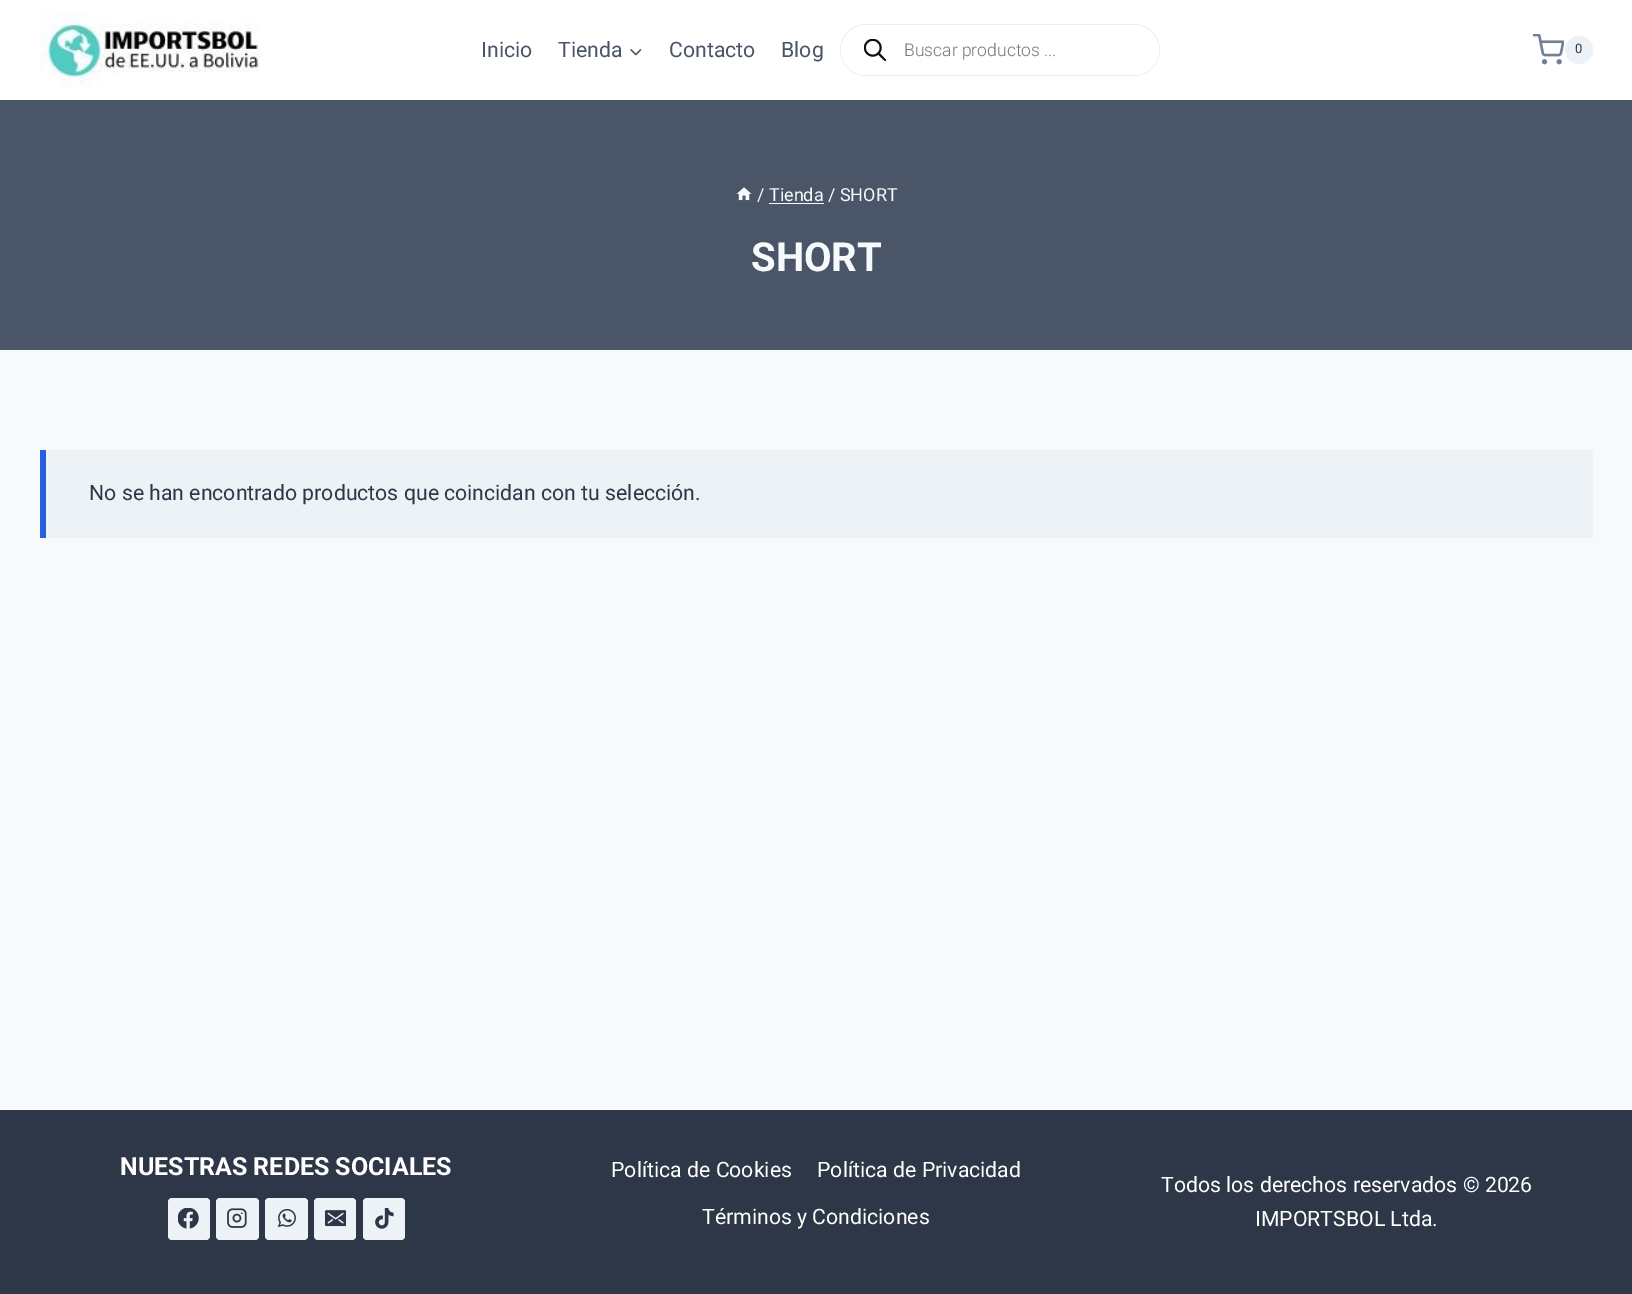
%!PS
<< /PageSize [1632 1294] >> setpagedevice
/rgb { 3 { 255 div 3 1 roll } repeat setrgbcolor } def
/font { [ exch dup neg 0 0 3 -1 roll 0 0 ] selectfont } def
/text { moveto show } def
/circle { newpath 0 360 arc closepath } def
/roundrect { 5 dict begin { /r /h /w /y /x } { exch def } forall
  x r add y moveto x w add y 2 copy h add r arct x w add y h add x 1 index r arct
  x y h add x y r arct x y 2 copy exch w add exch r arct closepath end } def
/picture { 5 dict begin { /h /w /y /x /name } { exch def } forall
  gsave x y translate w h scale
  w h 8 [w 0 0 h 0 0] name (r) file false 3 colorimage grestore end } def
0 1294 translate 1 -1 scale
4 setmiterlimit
247 250 252 rgb
0 0 1632 1294 rectfill
255 255 255 rgb
0 0 1632 100 rectfill
(img_01.rgb) 40 12 220 76 picture
(img_02.rgb) 630 49 12 7 picture
238 238 238 rgb
840.5 24.5 319 51 25.5 roundrect stroke
255 255 255 rgb
841 25 318 50 25 roundrect fill
(img_03.rgb) 864 39 22 22 picture
(img_04.rgb) 1533 34 31 31 picture
237 242 247 rgb
1579 50 14 circle fill
74 85 104 rgb
0 100 1632 250 rectfill
(img_05.rgb) 736 187 16 14 picture
247 250 252 rgb
769 203 55 1 rectfill
237 242 247 rgb
46 450 1547 88 rectfill
37 95 221 rgb
40 450 6 88 rectfill
45 55 72 rgb
0 1110 1632 184 rectfill
237 242 247 rgb
168 1198 42 42 4 roundrect fill
(img_06.rgb) 178 1208 21 21 picture
216 1198 43 42 4 roundrect fill
(img_07.rgb) 227 1208 20 20 picture
265 1198 43 42 4 roundrect fill
(img_08.rgb) 277 1209 19 19 picture
314 1198 42 42 4 roundrect fill
(img_09.rgb) 325 1210 21 17 picture
363 1198 42 42 4 roundrect fill
(img_10.rgb) 375 1208 19 21 picture
/Roboto-Regular 21.25 font
74 85 104 rgb
(Inicio) 481 57 text
(Tienda) 558 57 text
(Contacto) 669 57 text
(Blog) 781 57 text
/Roboto-Light 17.5 font
119 119 119 rgb
(Buscar productos ...) 904 56 text
/Roboto-Regular 13 font
45 55 72 rgb
(0) 1575 53 text
/Roboto-Regular 18 font
247 250 252 rgb
(/ Tienda / SHORT) 757 201 text
/Roboto-Bold 40 font
(SHORT) 751 271 text
/Roboto-Regular 21.25 font
45 55 72 rgb
(No se han encontrado productos que coincidan con tu selección.) 89 500 text
/Roboto-Bold 25 font
255 255 255 rgb
(NUESTRAS REDES SOCIALES) 120 1175 text
/Roboto-Regular 21.25 font
(Política de Cookies) 611 1177 text
(Política de Privacidad) 817 1177 text
(Términos y Condiciones) 702 1224 text
(Todos los derechos reservados © 2026) 1161 1192 text
(IMPORTSBOL Ltda.) 1255 1226 text
showpage
